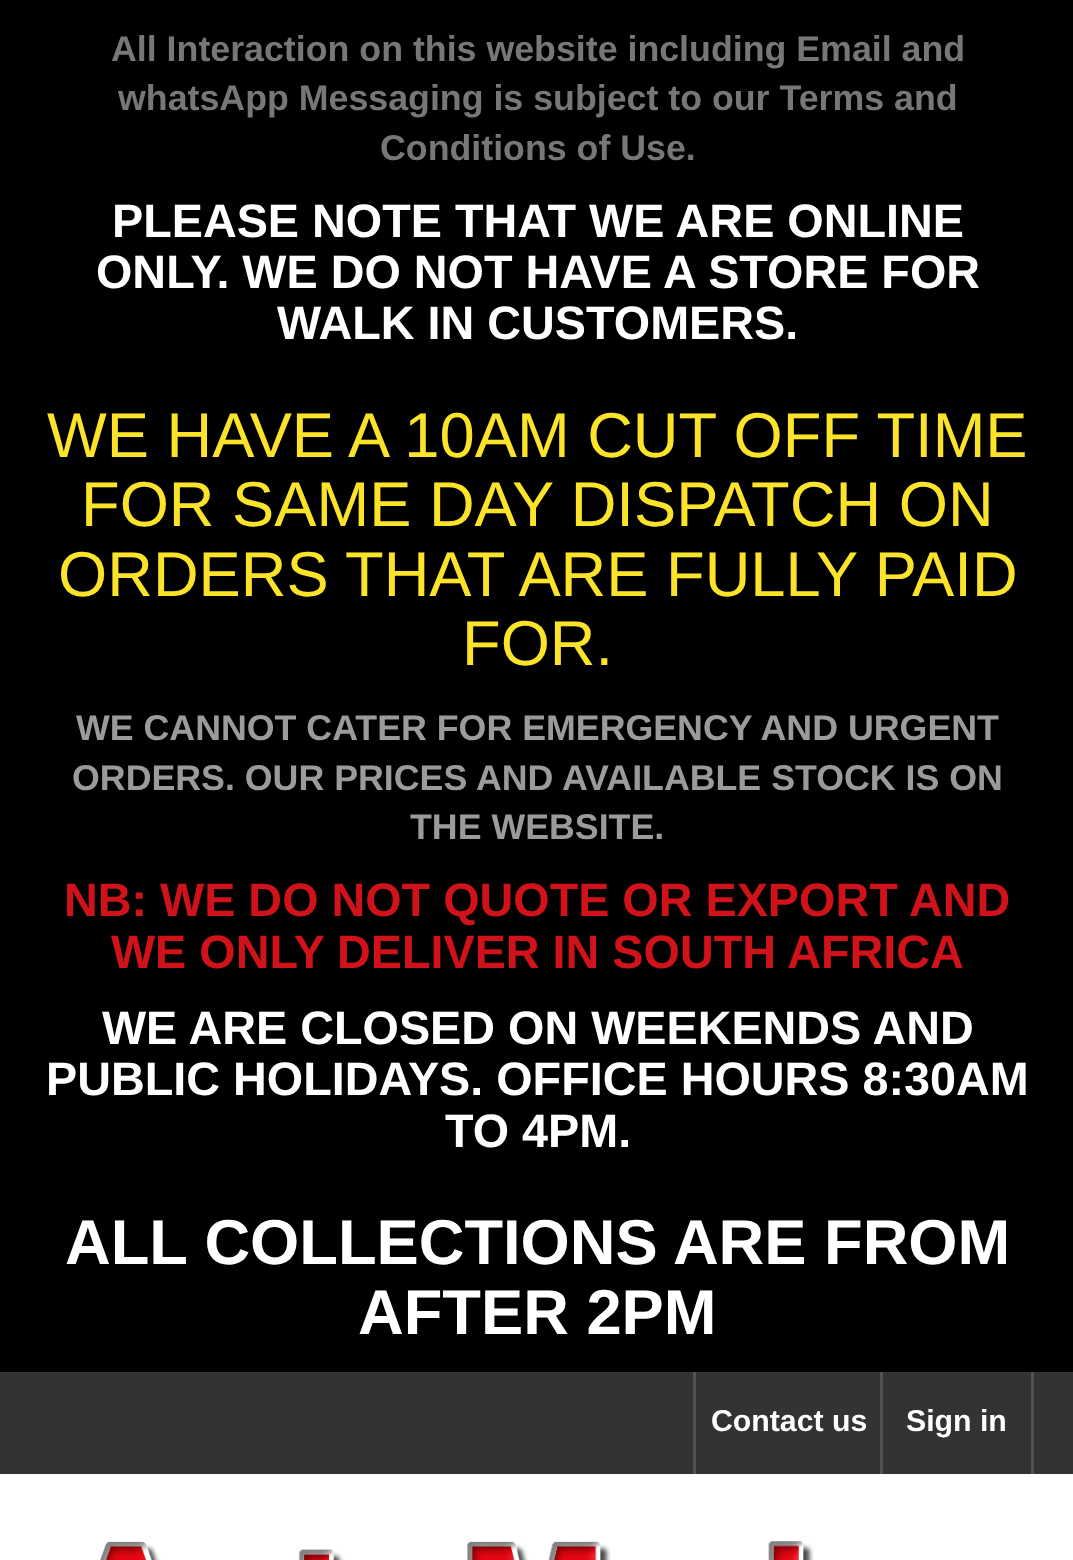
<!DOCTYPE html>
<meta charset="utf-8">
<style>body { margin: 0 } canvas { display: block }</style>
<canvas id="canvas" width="1073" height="1560"></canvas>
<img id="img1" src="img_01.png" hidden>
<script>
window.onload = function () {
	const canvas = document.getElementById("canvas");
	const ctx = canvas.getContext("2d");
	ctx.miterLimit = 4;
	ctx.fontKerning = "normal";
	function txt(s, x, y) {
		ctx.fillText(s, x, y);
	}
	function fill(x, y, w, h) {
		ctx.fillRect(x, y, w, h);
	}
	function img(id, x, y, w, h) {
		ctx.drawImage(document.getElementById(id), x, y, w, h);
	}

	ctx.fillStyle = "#FFFFFF";
	fill(0, 0, 1073, 1560);
	ctx.fillStyle = "#000000";
	fill(0, 0, 1073, 1372);
	ctx.fillStyle = "#333333";
	fill(0, 1372, 1073, 102);
	ctx.fillStyle = "#515151";
	fill(693, 1372, 3, 102);
	fill(1031, 1372, 3, 102);
	fill(880, 1372, 3, 102);
	img("img1", 100, 1541, 714, 19);
	ctx.font = "bold 35.75px Liberation Sans";
	ctx.fillStyle = "#777777";
	txt("All Interaction on this website including Email and", 111, 61);
	txt("whatsApp Messaging is subject to our Terms and", 118, 110);
	txt("Conditions of Use.", 380, 160);
	ctx.font = "bold 46.75px Liberation Sans";
	ctx.fillStyle = "#FFFFFF";
	txt("PLEASE NOTE THAT WE ARE ONLINE", 112, 237);
	txt("ONLY. WE DO NOT HAVE A STORE FOR", 96, 288);
	txt("WALK IN CUSTOMERS.", 277, 339);
	ctx.font = "63.25px Liberation Sans";
	ctx.fillStyle = "#FBE329";
	txt("WE HAVE A 10AM CUT OFF TIME", 47, 457);
	txt("FOR SAME DAY DISPATCH ON", 81, 526);
	txt("ORDERS THAT ARE FULLY PAID", 58, 596);
	txt("FOR.", 462, 665);
	ctx.font = "bold 35.75px Liberation Sans";
	ctx.fillStyle = "#9B9B9B";
	txt("WE CANNOT CATER FOR EMERGENCY AND URGENT", 76, 740);
	txt("ORDERS. OUR PRICES AND AVAILABLE STOCK IS ON", 72, 790);
	txt("THE WEBSITE.", 410, 839);
	ctx.font = "bold 46.75px Liberation Sans";
	ctx.fillStyle = "#D0121A";
	txt("NB: WE DO NOT QUOTE OR EXPORT AND", 64, 916);
	txt("WE ONLY DELIVER IN SOUTH AFRICA", 111, 968);
	ctx.fillStyle = "#FFFFFF";
	txt("WE ARE CLOSED ON WEEKENDS AND", 102, 1044);
	txt("PUBLIC HOLIDAYS. OFFICE HOURS 8:30AM", 46, 1095);
	txt("TO 4PM.", 445, 1147);
	ctx.font = "bold 63.25px Liberation Sans";
	txt("ALL COLLECTIONS ARE FROM", 65, 1264);
	txt("AFTER 2PM", 358, 1334);
	ctx.font = "bold 30.25px Liberation Sans";
	txt("Contact us", 711, 1431);
	txt("Sign in", 906, 1431);
};
</script>
